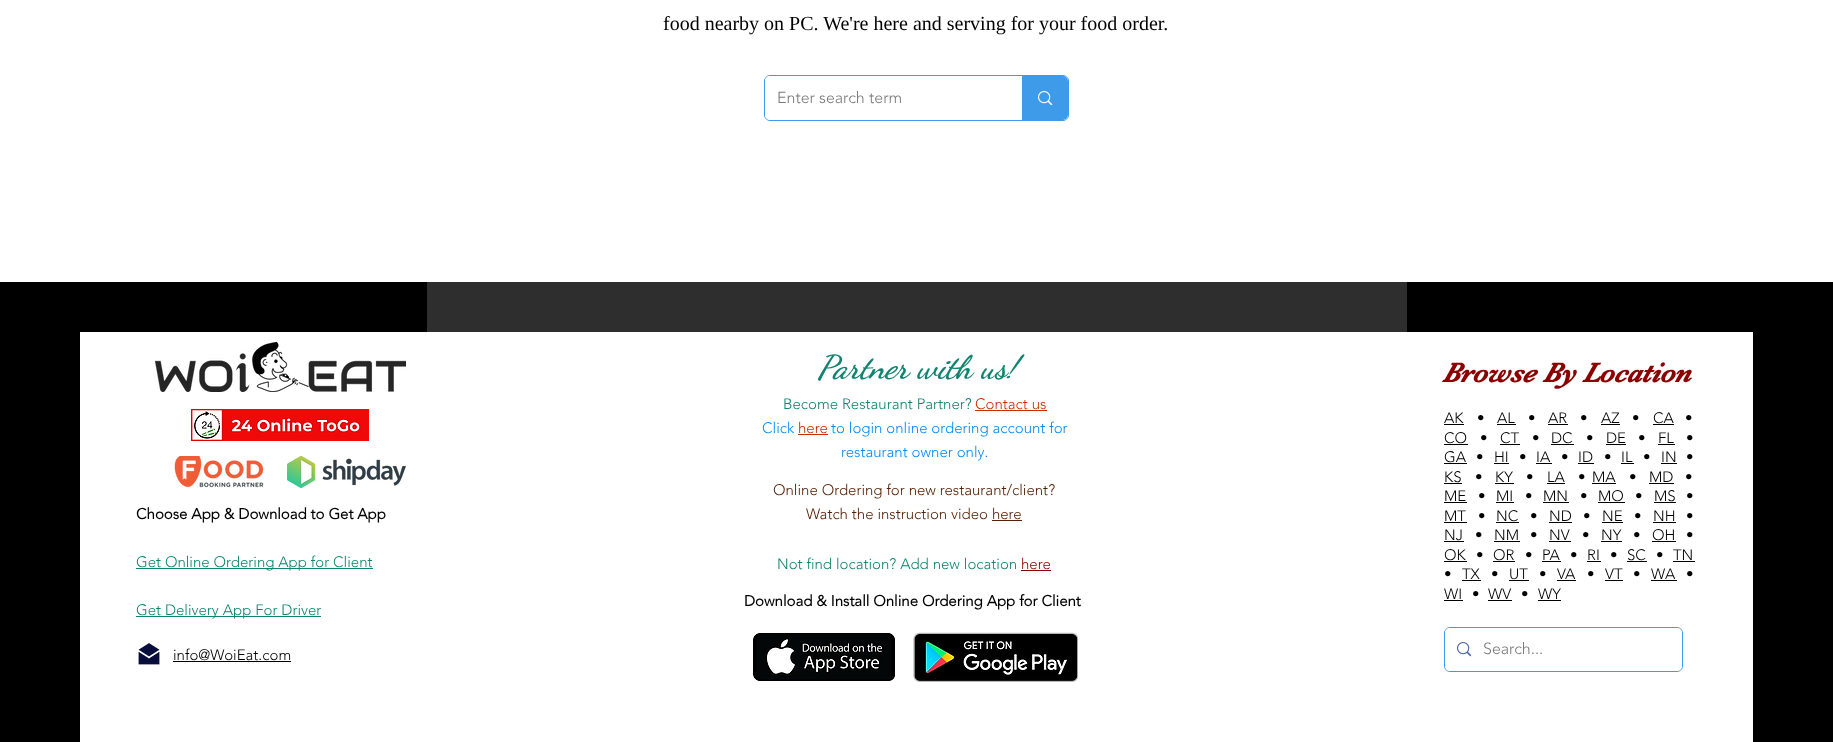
<!DOCTYPE html>
<meta charset="utf-8">
<style>body { margin: 0 } canvas { display: block }</style>
<canvas id="canvas" width="1833" height="742"></canvas>
<img id="img1" src="img_01.png" hidden>
<img id="img2" src="img_02.png" hidden>
<img id="img3" src="img_03.png" hidden>
<img id="img4" src="img_04.png" hidden>
<img id="img5" src="img_05.png" hidden>
<img id="img6" src="img_06.png" hidden>
<img id="img7" src="img_07.png" hidden>
<img id="img8" src="img_08.png" hidden>
<img id="img9" src="img_09.png" hidden>
<script>
window.onload = function () {
	const canvas = document.getElementById("canvas");
	const ctx = canvas.getContext("2d");
	ctx.miterLimit = 4;
	ctx.fontKerning = "normal";
	function txt(s, x, y) {
		ctx.fillText(s, x, y);
	}
	function fill(x, y, w, h) {
		ctx.fillRect(x, y, w, h);
	}
	function round(x, y, w, h, r) {
		ctx.beginPath();
		ctx.roundRect(x, y, w, h, r);
		ctx.fill();
	}
	function img(id, x, y, w, h) {
		ctx.drawImage(document.getElementById(id), x, y, w, h);
	}

	ctx.fillStyle = "#FFFFFF";
	fill(0, 0, 1833, 742);
	ctx.beginPath();
	ctx.roundRect(764.5, 75.5, 304, 45, 5.5);
	ctx.strokeStyle = "#3D9BE9";
	ctx.stroke();
	round(765, 76, 303, 44, 5);
	ctx.fillStyle = "#3D9BE9";
	ctx.beginPath();
	ctx.roundRect(1022, 76, 46, 44, [0, 5, 5, 0]);
	ctx.fill();
	img("img1", 1038, 91, 15, 14);
	ctx.fillStyle = "#000000";
	fill(0, 282, 1833, 460);
	ctx.fillStyle = "#2F2E2E";
	fill(427, 282, 980, 50);
	ctx.fillStyle = "#FFFFFF";
	fill(80, 332, 1673, 410);
	img("img2", 155, 342, 251, 50);
	img("img3", 191, 409, 178, 32);
	img("img4", 174, 456, 90, 32);
	img("img5", 287, 456, 119, 32);
	ctx.fillStyle = "#10846F";
	fill(136, 568, 237, 1);
	fill(136, 616, 185, 1);
	img("img6", 138, 643, 22, 22);
	ctx.fillStyle = "#000000";
	fill(173, 661, 118, 1);
	ctx.fillStyle = "#C72E00";
	fill(975, 410, 72, 1);
	fill(798, 434, 30, 1);
	ctx.fillStyle = "#552207";
	fill(992, 520, 30, 1);
	ctx.fillStyle = "#8B0000";
	fill(1021, 570, 30, 1);
	img("img7", 753, 633, 142, 48);
	img("img8", 913, 632, 165, 50);
	ctx.fillStyle = "#000000";
	fill(1444, 424, 20, 1);
	fill(1497, 424, 19, 1);
	fill(1548, 424, 20, 1);
	fill(1601, 424, 19, 1);
	fill(1653, 424, 21, 1);
	fill(1444, 444, 24, 1);
	fill(1500, 444, 20, 1);
	fill(1551, 444, 23, 1);
	fill(1606, 444, 20, 1);
	fill(1658, 444, 17, 1);
	fill(1444, 463, 23, 1);
	fill(1494, 463, 15, 1);
	fill(1536, 463, 16, 1);
	fill(1578, 463, 16, 1);
	fill(1621, 463, 13, 1);
	fill(1661, 463, 16, 1);
	fill(1444, 483, 18, 1);
	fill(1495, 483, 19, 1);
	fill(1547, 483, 18, 1);
	fill(1592, 483, 24, 1);
	fill(1649, 483, 25, 1);
	fill(1444, 502, 23, 1);
	fill(1496, 502, 18, 1);
	fill(1543, 502, 26, 1);
	fill(1598, 502, 27, 1);
	fill(1654, 502, 22, 1);
	fill(1444, 522, 23, 1);
	fill(1496, 522, 23, 1);
	fill(1549, 522, 23, 1);
	fill(1602, 522, 21, 1);
	fill(1653, 522, 23, 1);
	fill(1444, 541, 20, 1);
	fill(1494, 541, 26, 1);
	fill(1549, 541, 22, 1);
	fill(1601, 541, 21, 1);
	fill(1652, 541, 24, 1);
	fill(1444, 561, 23, 1);
	fill(1493, 561, 22, 1);
	fill(1542, 561, 19, 1);
	fill(1587, 561, 14, 1);
	fill(1627, 561, 20, 1);
	fill(1673, 561, 22, 1);
	fill(1462, 580, 19, 1);
	fill(1509, 580, 20, 1);
	fill(1557, 580, 19, 1);
	fill(1605, 580, 18, 1);
	fill(1651, 580, 26, 1);
	fill(1444, 600, 19, 1);
	fill(1488, 600, 24, 1);
	fill(1538, 600, 23, 1);
	ctx.beginPath();
	ctx.roundRect(1444.5, 627.5, 238, 44, 5.5);
	ctx.stroke();
	ctx.fillStyle = "#FFFFFF";
	round(1445, 628, 237, 43, 5);
	img("img9", 1457, 642, 14, 15);
	ctx.font = "20px Liberation Serif";
	ctx.fillStyle = "#000000";
	txt("food nearby on PC. We're here and serving for your food order.", 663, 30);
	ctx.font = "300 16px 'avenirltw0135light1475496'";
	ctx.fillStyle = "#787878";
	txt("Enter search term", 777, 103);
	ctx.font = "bold 15px 'avenirltw0135light1475496'";
	ctx.fillStyle = "#000000";
	txt("Choose App & Download to Get App", 136, 519);
	ctx.font = "300 15px 'avenirltw0135light1475496'";
	ctx.fillStyle = "#10846F";
	txt("Get Online Ordering App for Client", 136, 567);
	txt("Get Delivery App For Driver", 136, 615);
	ctx.fillStyle = "#000000";
	txt("info@WoiEat.com", 173, 660);
	ctx.font = "italic bold 33px Dancing Script";
	ctx.fillStyle = "#10846F";
	txt("Partner with us!", 817, 378);
	ctx.font = "300 15px 'avenirltw0135light1475496'";
	txt("Become Restaurant Partner?", 783, 409);
	ctx.fillStyle = "#C72E00";
	txt("Contact us", 975, 409);
	ctx.fillStyle = "#008AFC";
	txt("Click", 762, 433);
	ctx.fillStyle = "#C72E00";
	txt("here", 798, 433);
	ctx.fillStyle = "#008AFC";
	txt("to login online ordering account for", 831, 433);
	txt("restaurant owner only.", 841, 457);
	ctx.fillStyle = "#552207";
	txt("Online Ordering for new restaurant/client?", 773, 495);
	txt("Watch the instruction video here", 806, 519);
	ctx.fillStyle = "#10846F";
	txt("Not find location? Add new location", 777, 569);
	ctx.fillStyle = "#8B0000";
	txt("here", 1021, 569);
	ctx.font = "bold 15px 'avenirltw0135light1475496'";
	ctx.fillStyle = "#000000";
	txt("Download & Install Online Ordering App for Client", 744, 606);
	ctx.font = "italic bold 28px 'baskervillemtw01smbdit'";
	ctx.fillStyle = "#8B0000";
	txt("Browse By Location", 1442, 382);
	ctx.font = "300 15px 'avenirltw0135light1475496'";
	ctx.fillStyle = "#000000";
	txt("AK", 1444, 423);
	txt("•", 1477, 423);
	txt("AL", 1497, 423);
	txt("•", 1528, 423);
	txt("AR", 1548, 423);
	txt("•", 1580, 423);
	txt("AZ", 1601, 423);
	txt("•", 1632, 423);
	txt("CA", 1653, 423);
	txt("•", 1685, 423);
	txt("CO", 1444, 443);
	txt("•", 1480, 443);
	txt("CT", 1500, 443);
	txt("•", 1532, 443);
	txt("DC", 1551, 443);
	txt("•", 1586, 443);
	txt("DE", 1606, 443);
	txt("•", 1638, 443);
	txt("FL", 1658, 443);
	txt("•", 1686, 443);
	txt("GA", 1444, 462);
	txt("•", 1476, 462);
	txt("HI", 1494, 462);
	txt("•", 1519, 462);
	txt("IA", 1536, 462);
	txt("•", 1561, 462);
	txt("ID", 1578, 462);
	txt("•", 1604, 462);
	txt("IL", 1621, 462);
	txt("•", 1643, 462);
	txt("IN", 1661, 462);
	txt("•", 1686, 462);
	txt("KS", 1444, 482);
	txt("•", 1475, 482);
	txt("KY", 1495, 482);
	txt("•", 1526, 482);
	txt("LA", 1547, 482);
	txt("•", 1578, 482);
	txt("MA", 1592, 482);
	txt("•", 1629, 482);
	txt("MD", 1649, 482);
	txt("•", 1685, 482);
	txt("ME", 1444, 501);
	txt("•", 1478, 501);
	txt("MI", 1496, 501);
	txt("•", 1525, 501);
	txt("MN", 1543, 501);
	txt("•", 1580, 501);
	txt("MO", 1598, 501);
	txt("•", 1635, 501);
	txt("MS", 1654, 501);
	txt("•", 1686, 501);
	txt("MT", 1444, 521);
	txt("•", 1478, 521);
	txt("NC", 1496, 521);
	txt("•", 1530, 521);
	txt("ND", 1549, 521);
	txt("•", 1583, 521);
	txt("NE", 1602, 521);
	txt("•", 1634, 521);
	txt("NH", 1653, 521);
	txt("•", 1686, 521);
	txt("NJ", 1444, 540);
	txt("•", 1475, 540);
	txt("NM", 1494, 540);
	txt("•", 1530, 540);
	txt("NV", 1549, 540);
	txt("•", 1582, 540);
	txt("NY", 1601, 540);
	txt("•", 1633, 540);
	txt("OH", 1652, 540);
	txt("•", 1686, 540);
	txt("OK", 1444, 560);
	txt("•", 1476, 560);
	txt("OR", 1493, 560);
	txt("•", 1525, 560);
	txt("PA", 1542, 560);
	txt("•", 1570, 560);
	txt("RI", 1587, 560);
	txt("•", 1610, 560);
	txt("SC", 1627, 560);
	txt("•", 1656, 560);
	txt("TN", 1673, 560);
	txt("•", 1444, 579);
	txt("TX", 1462, 579);
	txt("•", 1491, 579);
	txt("UT", 1509, 579);
	txt("•", 1539, 579);
	txt("VA", 1557, 579);
	txt("•", 1587, 579);
	txt("VT", 1605, 579);
	txt("•", 1633, 579);
	txt("WA", 1651, 579);
	txt("•", 1686, 579);
	txt("WI", 1444, 599);
	txt("•", 1472, 599);
	txt("WV", 1488, 599);
	txt("•", 1521, 599);
	txt("WY", 1538, 599);
	ctx.font = "300 16px 'avenirltw0135light1475496'";
	ctx.fillStyle = "#787878";
	txt("Search...", 1483, 654);
};
</script>
